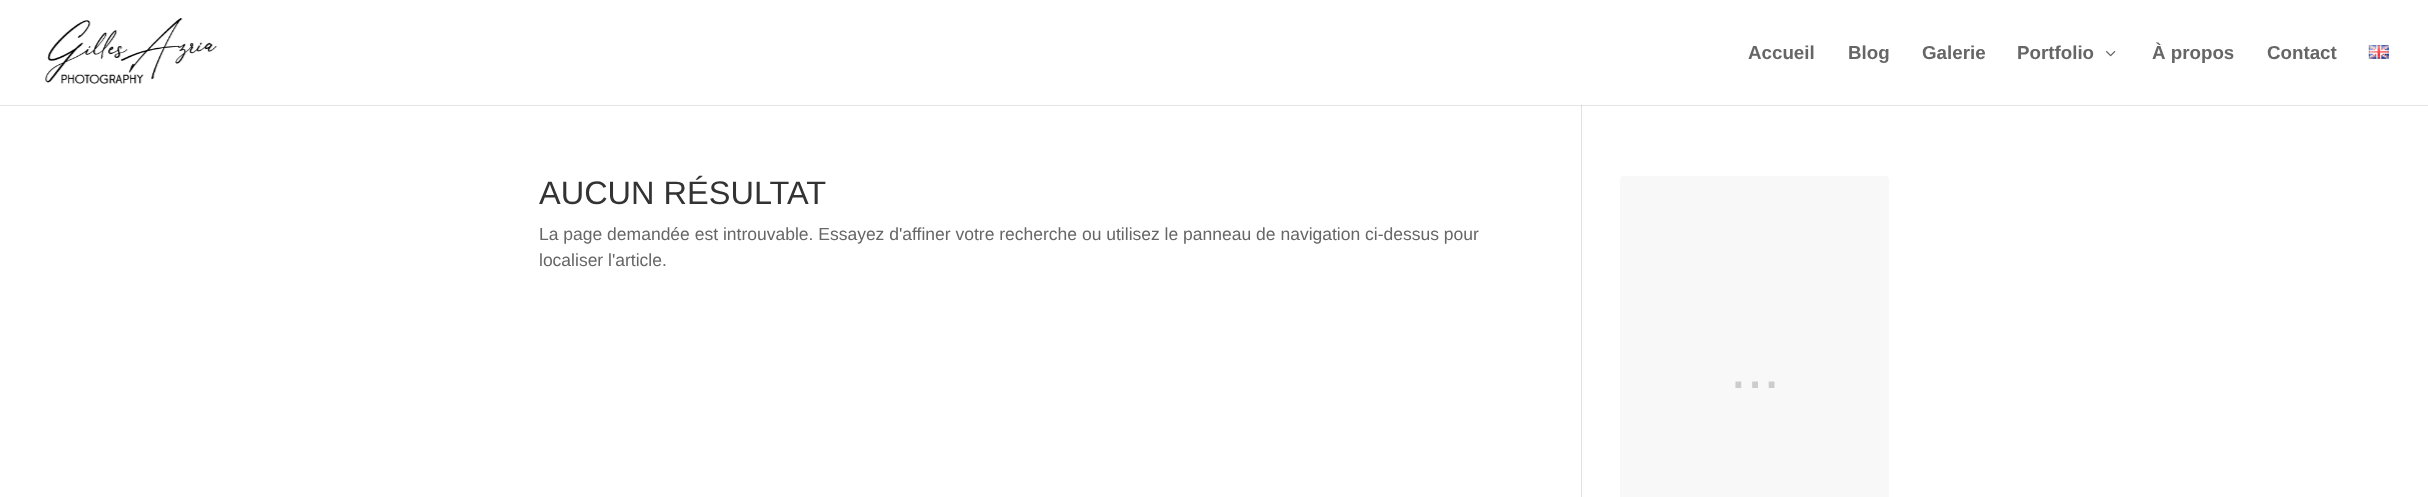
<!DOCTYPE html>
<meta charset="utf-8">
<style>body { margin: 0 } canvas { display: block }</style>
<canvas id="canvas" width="2428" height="497"></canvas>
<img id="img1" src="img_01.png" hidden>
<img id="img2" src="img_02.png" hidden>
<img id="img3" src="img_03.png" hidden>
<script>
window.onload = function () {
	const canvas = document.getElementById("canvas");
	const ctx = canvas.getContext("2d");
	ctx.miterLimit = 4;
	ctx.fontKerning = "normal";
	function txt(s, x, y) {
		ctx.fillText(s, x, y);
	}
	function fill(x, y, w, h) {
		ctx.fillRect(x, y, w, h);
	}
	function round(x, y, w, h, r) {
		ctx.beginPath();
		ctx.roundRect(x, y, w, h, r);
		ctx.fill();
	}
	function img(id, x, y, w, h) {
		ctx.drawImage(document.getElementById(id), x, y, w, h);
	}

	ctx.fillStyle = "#FFFFFF";
	fill(0, 0, 2428, 497);
	ctx.fillStyle = "#E2E2E2";
	fill(1581, 104, 1, 393);
	ctx.fillStyle = "rgba(0, 0, 0, 0.1)";
	ctx.beginPath();
	ctx.moveTo(0, 105);
	ctx.lineTo(0, 106);
	ctx.lineTo(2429, 106);
	ctx.lineTo(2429, 1);
	ctx.lineTo(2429, 105);
	ctx.closePath();
	ctx.fill();
	ctx.fillStyle = "#FFFFFF";
	fill(1581, 104, 1, 1);
	img("img1", 45, 18, 173, 66);
	img("img2", 2106, 51, 10, 6);
	img("img3", 2368, 45, 21, 14);
	ctx.fillStyle = "#F8F8F8";
	round(1620, 176, 269, 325, 4);
	ctx.font = "bold 18.75px Liberation Sans";
	ctx.fillStyle = "#666666";
	txt("Accueil", 1748, 59);
	txt("Blog", 1848, 59);
	txt("Galerie", 1922, 59);
	txt("Portfolio", 2017, 59);
	txt("À propos", 2152, 59);
	txt("Contact", 2267, 59);
	ctx.font = "32.5px Liberation Sans";
	ctx.fillStyle = "#333333";
	txt("AUCUN RÉSULTAT", 539, 204);
	ctx.font = "17.5px Liberation Sans";
	ctx.fillStyle = "#666666";
	txt("La page demandée est introuvable. Essayez d'affiner votre recherche ou utilisez le panneau de navigation ci-dessus pour", 539, 240);
	txt("localiser l'article.", 539, 266);
	ctx.font = "60px Liberation Sans";
	ctx.fillStyle = "#CCCCCC";
	txt("...", 1730, 388);
};
</script>
